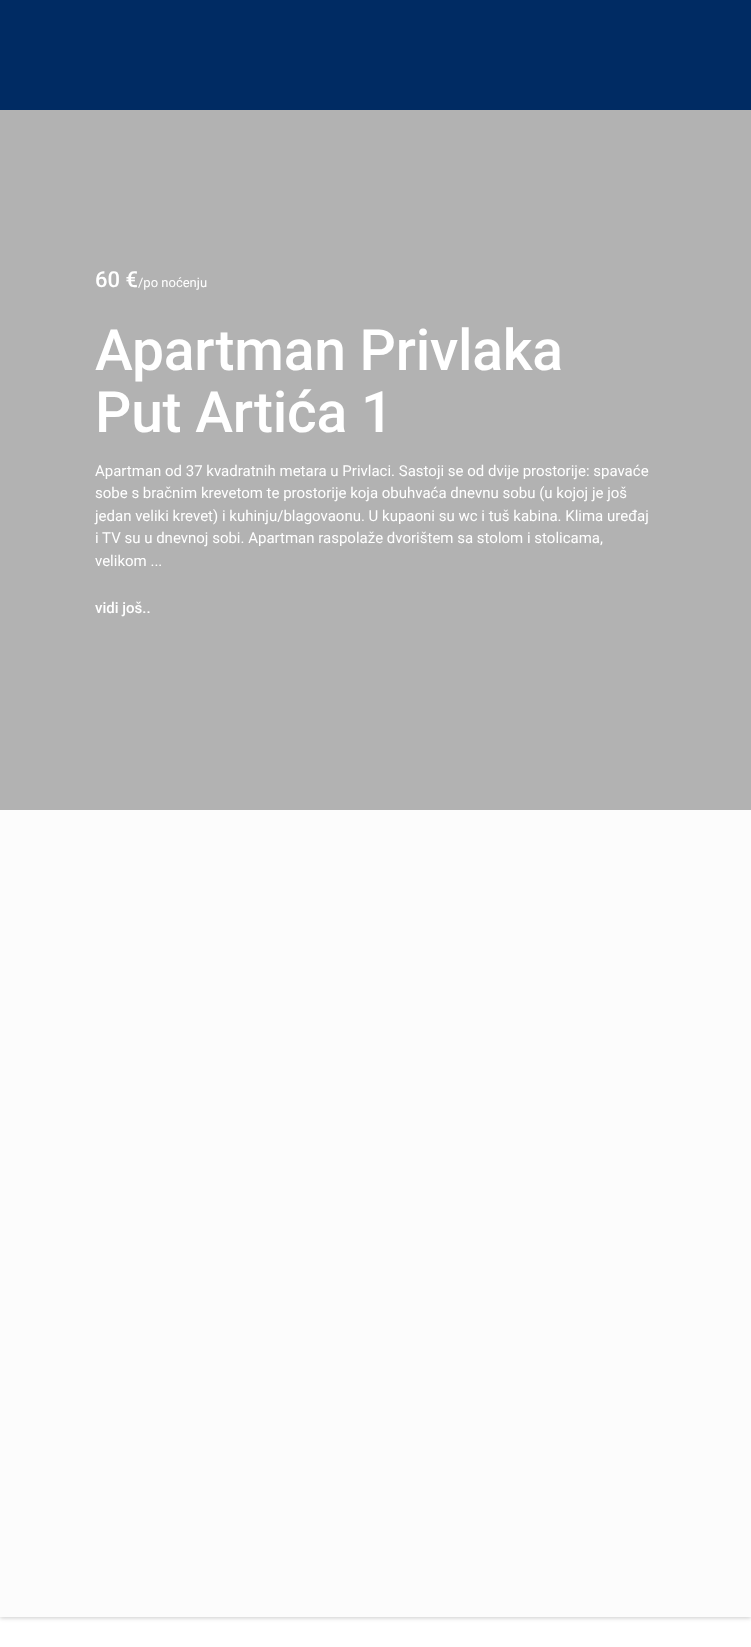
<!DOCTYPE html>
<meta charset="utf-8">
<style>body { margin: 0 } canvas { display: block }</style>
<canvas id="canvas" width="751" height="1647"></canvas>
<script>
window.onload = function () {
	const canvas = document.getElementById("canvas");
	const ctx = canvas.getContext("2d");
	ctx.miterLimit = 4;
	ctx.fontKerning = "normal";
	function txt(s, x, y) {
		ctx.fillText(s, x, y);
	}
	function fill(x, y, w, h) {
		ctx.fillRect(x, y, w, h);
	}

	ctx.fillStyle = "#FFFFFF";
	fill(0, 0, 751, 1647);
	ctx.fillStyle = "rgba(0, 0, 0, 0.2)";
	ctx.filter = "blur(2px)";
	ctx.beginPath();
	ctx.rect(0, 1, 751, 1617);
	ctx.fill();
	ctx.filter = "none";
	ctx.fillStyle = "#FCFCFC";
	fill(0, 810, 751, 807);
	ctx.fillStyle = "#002B63";
	fill(0, 0, 751, 110);
	ctx.fillStyle = "#B2B2B2";
	fill(0, 110, 751, 700);
	ctx.font = "500 22px Roboto";
	ctx.fillStyle = "#FFFFFF";
	txt("60 €", 95, 287);
	ctx.font = "13px Roboto";
	txt("/po noćenju", 138, 287);
	ctx.letterSpacing = "-0.25px";
	ctx.font = "500 57px Roboto";
	txt("Apartman Privlaka", 95, 370);
	txt("Put Artića 1", 95, 432);
	ctx.letterSpacing = "0px";
	ctx.font = "15px Roboto";
	txt("Apartman od 37 kvadratnih metara u Privlaci. Sastoji se od dvije prostorije: spavaće", 95, 476);
	txt("sobe s bračnim krevetom te prostorije koja obuhvaća dnevnu sobu (u kojoj je još", 95, 498);
	txt("jedan veliki krevet) i kuhinju/blagovaonu. U kupaoni su wc i tuš kabina. Klima uređaj", 95, 521);
	txt("i TV su u dnevnoj sobi. Apartman raspolaže dvorištem sa stolom i stolicama,", 95, 543);
	txt("velikom ...", 95, 566);
	ctx.font = "500 15px Roboto";
	txt("vidi još..", 95, 613);
};
</script>
